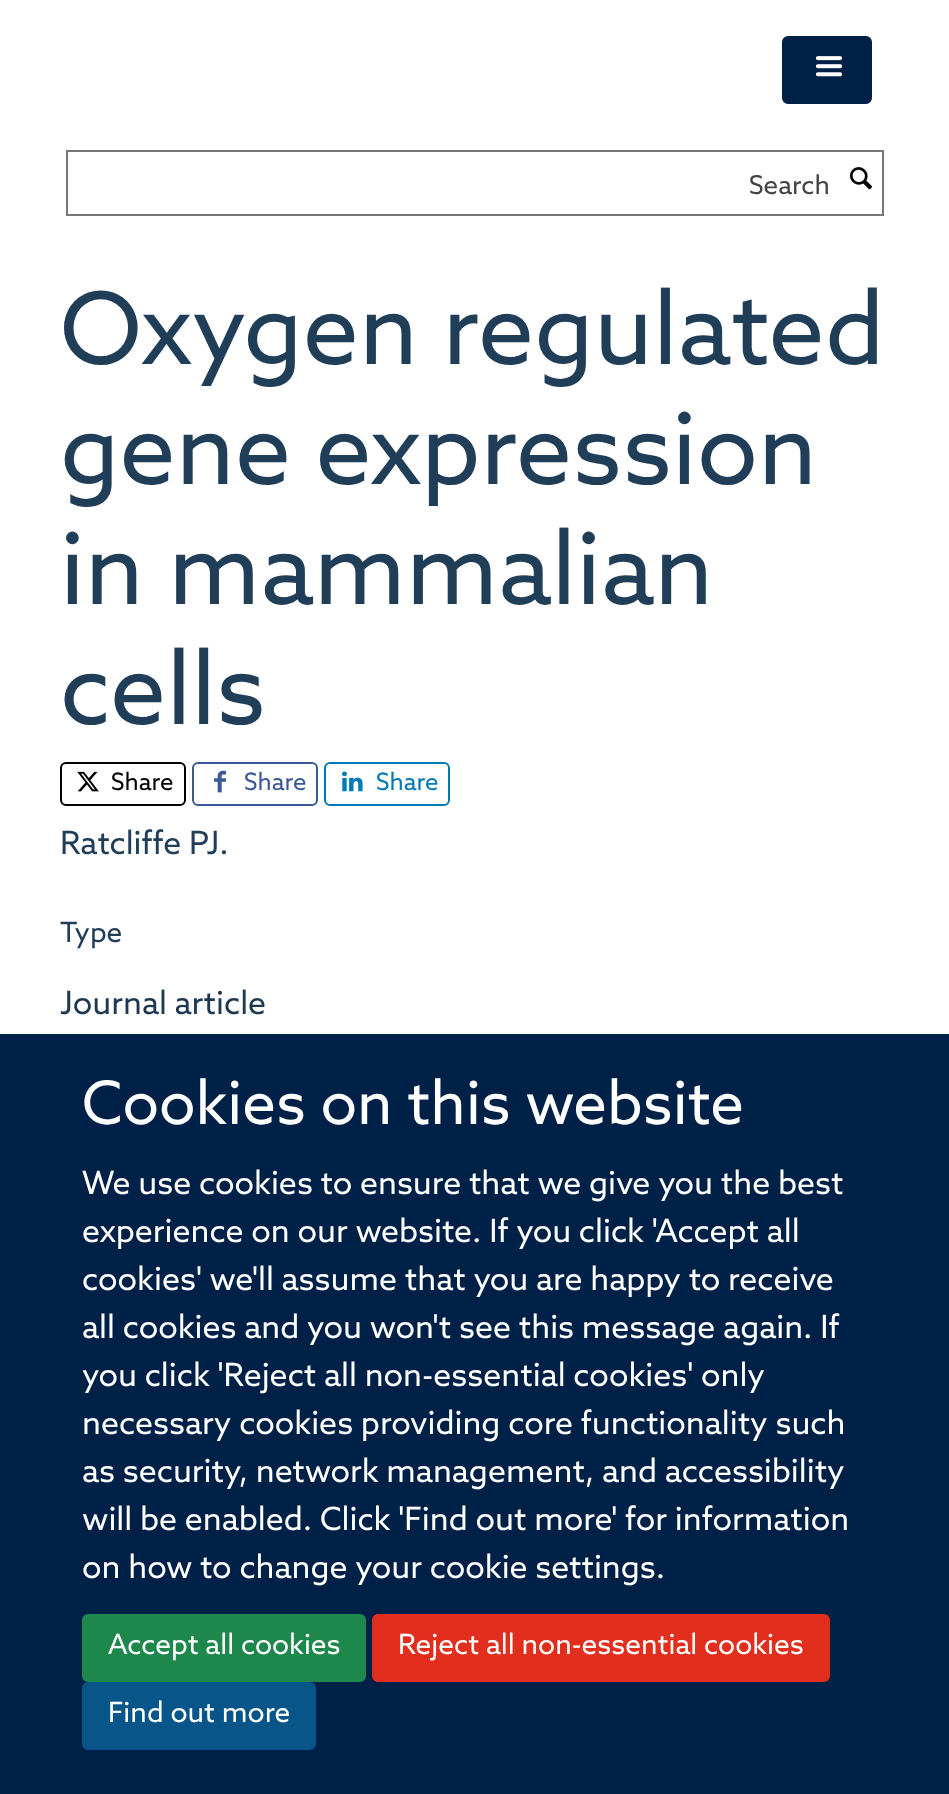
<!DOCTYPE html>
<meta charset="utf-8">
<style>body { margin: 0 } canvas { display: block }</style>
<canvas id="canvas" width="949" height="1794"></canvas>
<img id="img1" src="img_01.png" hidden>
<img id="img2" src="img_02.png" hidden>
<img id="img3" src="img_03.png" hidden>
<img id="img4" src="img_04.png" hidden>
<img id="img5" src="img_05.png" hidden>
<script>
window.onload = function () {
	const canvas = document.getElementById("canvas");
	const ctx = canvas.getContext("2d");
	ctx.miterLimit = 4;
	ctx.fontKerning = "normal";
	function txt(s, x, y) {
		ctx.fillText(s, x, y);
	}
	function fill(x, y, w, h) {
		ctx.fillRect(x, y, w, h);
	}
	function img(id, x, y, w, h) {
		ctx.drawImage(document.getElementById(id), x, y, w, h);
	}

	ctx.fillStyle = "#FFFFFF";
	fill(0, 0, 949, 1794);
	ctx.fillStyle = "#002147";
	ctx.beginPath();
	ctx.roundRect(783, 37, 88, 66, 5);
	ctx.fill();
	ctx.strokeStyle = "#002147";
	ctx.lineWidth = 2;
	ctx.stroke();
	img("img1", 815, 56, 28, 21);
	ctx.strokeStyle = "#777777";
	ctx.strokeRect(67, 151, 816, 64);
	img("img2", 850, 167, 23, 23);
	ctx.beginPath();
	ctx.roundRect(61, 763, 124, 42, 5);
	ctx.strokeStyle = "#000000";
	ctx.stroke();
	img("img3", 77, 771, 22, 21);
	ctx.beginPath();
	ctx.roundRect(193, 763, 124, 42, 5);
	ctx.strokeStyle = "#3B5998";
	ctx.stroke();
	img("img4", 214, 770, 12, 23);
	ctx.beginPath();
	ctx.roundRect(325, 763, 124, 42, 5);
	ctx.strokeStyle = "#007BB6";
	ctx.stroke();
	img("img5", 342, 771, 21, 21);
	fill(0, 1034, 949, 760);
	ctx.fillStyle = "#1E874B";
	ctx.beginPath();
	ctx.roundRect(83, 1615, 282, 66, 5);
	ctx.fill();
	ctx.strokeStyle = "#1E874B";
	ctx.stroke();
	ctx.fillStyle = "#E22E1C";
	ctx.beginPath();
	ctx.roundRect(373, 1615, 456, 66, 5);
	ctx.fill();
	ctx.strokeStyle = "#E22E1C";
	ctx.stroke();
	ctx.fillStyle = "#085589";
	ctx.beginPath();
	ctx.roundRect(83, 1683, 232, 66, 5);
	ctx.fill();
	ctx.strokeStyle = "#085589";
	ctx.stroke();
	ctx.font = "26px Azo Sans";
	ctx.fillStyle = "#444444";
	txt("Search", 749, 194);
	ctx.font = "100px Azo Sans";
	ctx.fillStyle = "#203E58";
	txt("Oxygen regulated", 60, 364);
	txt("gene expression", 60, 484);
	txt("in mammalian", 60, 604);
	txt("cells", 60, 724);
	ctx.font = "24px Azo Sans";
	ctx.fillStyle = "#000000";
	txt("Share", 111, 790);
	ctx.fillStyle = "#3B5998";
	txt("Share", 244, 790);
	ctx.fillStyle = "#007BB6";
	txt("Share", 376, 790);
	ctx.font = "32px Azo Sans";
	ctx.fillStyle = "#203E58";
	txt("Ratcliffe PJ.", 60, 854);
	ctx.font = "28px Azo Sans";
	txt("Type", 60, 942);
	ctx.font = "32px Azo Sans";
	ctx.fillStyle = "#1D3850";
	txt("Journal article", 60, 1014);
	ctx.font = "60px Azo Sans";
	ctx.fillStyle = "#FFFFFF";
	txt("Cookies on this website", 82, 1124);
	ctx.font = "32px Azo Sans";
	txt("We use cookies to ensure that we give you the best", 82, 1194);
	txt("experience on our website. If you click 'Accept all", 82, 1242);
	txt("cookies' we'll assume that you are happy to receive", 82, 1290);
	txt("all cookies and you won't see this message again. If", 82, 1338);
	txt("you click 'Reject all non-essential cookies' only", 82, 1386);
	txt("necessary cookies providing core functionality such", 82, 1434);
	txt("as security, network management, and accessibility", 82, 1482);
	txt("will be enabled. Click 'Find out more' for information", 82, 1530);
	txt("on how to change your cookie settings.", 82, 1578);
	ctx.font = "28px Azo Sans";
	txt("Accept all cookies", 108, 1654);
	txt("Reject all non-essential cookies", 398, 1654);
	txt("Find out more", 108, 1722);
};
</script>
